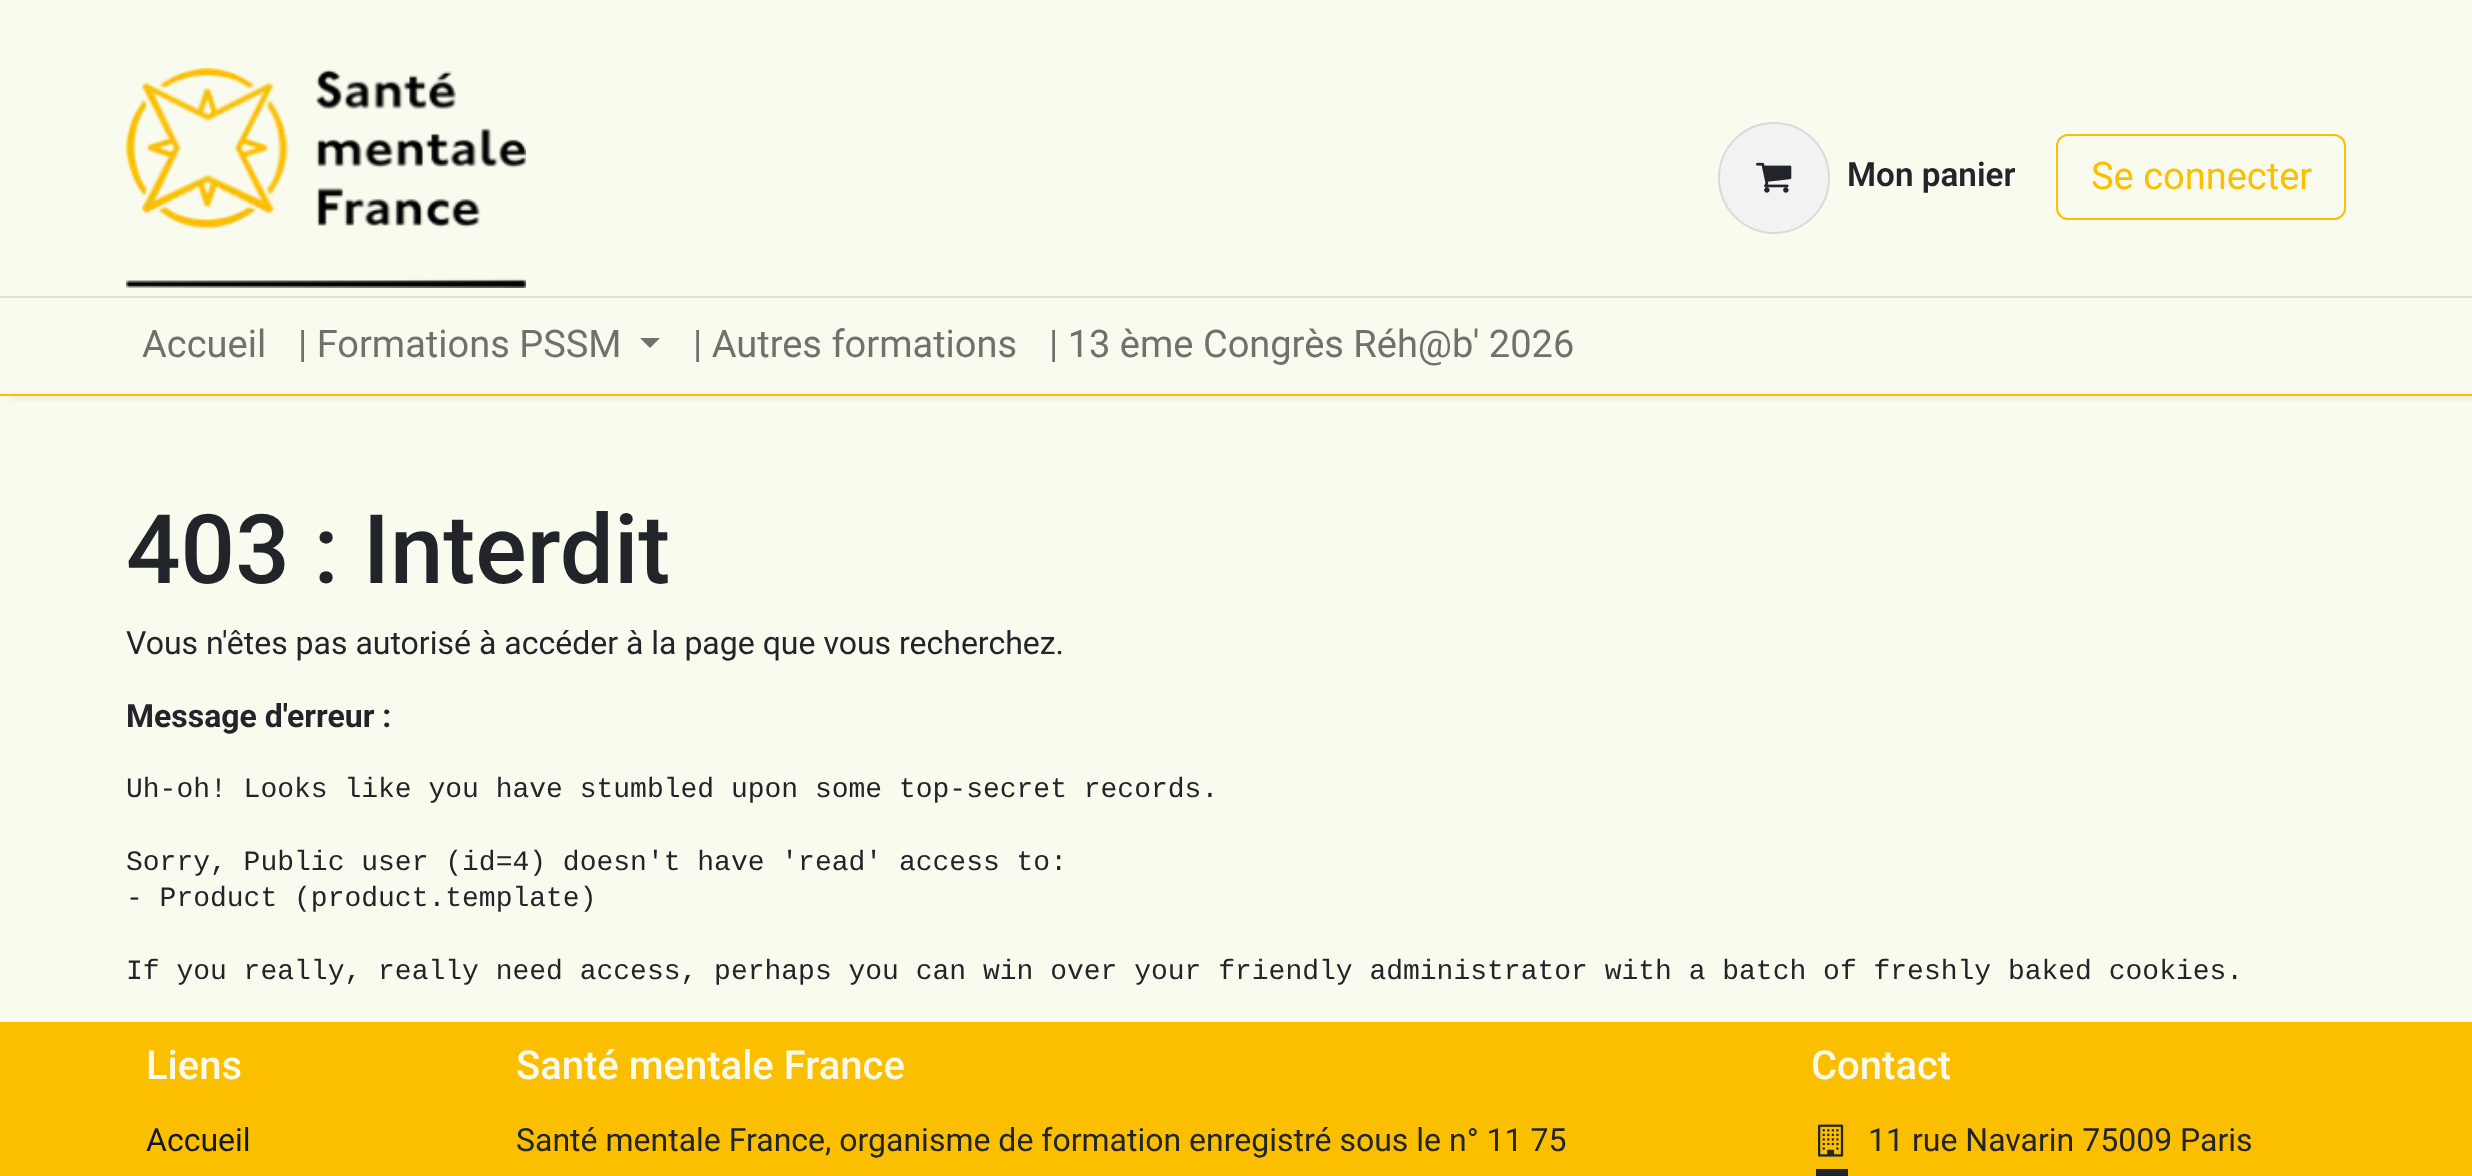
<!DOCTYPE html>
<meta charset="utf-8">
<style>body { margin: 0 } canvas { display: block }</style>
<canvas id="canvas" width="2472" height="1176"></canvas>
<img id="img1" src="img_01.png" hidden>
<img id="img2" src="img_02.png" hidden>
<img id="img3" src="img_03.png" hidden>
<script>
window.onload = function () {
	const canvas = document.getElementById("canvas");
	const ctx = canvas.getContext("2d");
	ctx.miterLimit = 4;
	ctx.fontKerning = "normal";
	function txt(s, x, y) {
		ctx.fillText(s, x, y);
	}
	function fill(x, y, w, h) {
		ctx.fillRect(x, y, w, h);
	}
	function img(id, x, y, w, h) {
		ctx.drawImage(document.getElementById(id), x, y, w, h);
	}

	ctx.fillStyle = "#FAFBEF";
	fill(0, 0, 2472, 1176);
	ctx.save();
	ctx.beginPath();
	ctx.rect(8, 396, 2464, 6);
	ctx.clip();
	ctx.fillStyle = "rgba(80, 78, 78, 0.1)";
	ctx.filter = "blur(5px)";
	ctx.beginPath();
	ctx.rect(10, 2, 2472, 396);
	ctx.fill();
	ctx.filter = "none";
	ctx.restore();
	ctx.fillStyle = "#FCBF00";
	fill(0, 394, 2472, 2);
	img("img1", 126, 68, 400, 220);
	ctx.fillStyle = "#F3F2F2";
	ctx.beginPath();
	ctx.arc(1774, 178, 56, 0, Math.PI * 2);
	ctx.fill();
	ctx.beginPath();
	ctx.arc(1774, 178, 55, 0, Math.PI * 2);
	ctx.strokeStyle = "rgba(0, 0, 0, 0.1)";
	ctx.lineWidth = 2;
	ctx.stroke();
	img("img2", 1756, 162, 36, 31);
	ctx.beginPath();
	ctx.roundRect(2057, 135, 288, 84, 11);
	ctx.strokeStyle = "#FCBF00";
	ctx.stroke();
	ctx.fillStyle = "#E1E2D7";
	fill(0, 296, 2472, 2);
	ctx.fillStyle = "#71716C";
	ctx.beginPath();
	ctx.moveTo(640, 338);
	ctx.lineTo(660, 338);
	ctx.lineTo(650, 348);
	ctx.closePath();
	ctx.fill();
	ctx.fillStyle = "#FCBF00";
	fill(0, 1022, 2472, 154);
	img("img3", 1818, 1124, 26, 33);
	ctx.fillStyle = "#212529";
	fill(1816, 1169, 32, 7);
	ctx.font = "600 33.25px Roboto";
	txt("Mon panier", 1847, 186);
	ctx.font = "38px Roboto";
	ctx.fillStyle = "#FCBF00";
	txt("Se connecter", 2091, 189);
	ctx.fillStyle = "#71716C";
	txt("Accueil", 142, 357);
	txt("| Formations PSSM", 298, 357);
	txt("| Autres formations", 693, 357);
	txt("| 13 ème Congrès Réh@b' 2026", 1049, 357);
	ctx.font = "500 96px Roboto";
	ctx.fillStyle = "#212529";
	txt("403 : Interdit", 126, 583);
	ctx.font = "32px Roboto";
	txt("Vous n'êtes pas autorisé à accéder à la page que vous recherchez.", 126, 654);
	ctx.font = "bold 32px Roboto";
	txt("Message d'erreur :", 126, 727);
	ctx.font = "28px Liberation Mono";
	txt("Uh-oh! Looks like you have stumbled upon some top-secret records.", 126, 797);
	txt("Sorry, Public user (id=4) doesn't have 'read' access to:", 126, 870);
	txt("- Product (product.template)", 126, 906);
	txt("If you really, really need access, perhaps you can win over your friendly administrator with a batch of freshly baked cookies.", 126, 979);
	ctx.font = "500 40px Roboto";
	ctx.fillStyle = "#FAFBEF";
	txt("Liens", 146, 1079);
	ctx.font = "32px Roboto";
	ctx.fillStyle = "#111827";
	txt("Accueil", 146, 1151);
	ctx.font = "500 40px Roboto";
	ctx.fillStyle = "#FAFBEF";
	txt("Santé mentale France", 516, 1079);
	ctx.font = "32px Roboto";
	ctx.fillStyle = "#212529";
	txt("Santé mentale France, organisme de formation enregistré sous le n° 11 75", 516, 1151);
	ctx.font = "500 40px Roboto";
	ctx.fillStyle = "#FAFBEF";
	txt("Contact", 1811, 1079);
	ctx.font = "32px Roboto";
	ctx.fillStyle = "#212529";
	txt("11 rue Navarin 75009 Paris", 1868, 1151);
};
</script>
